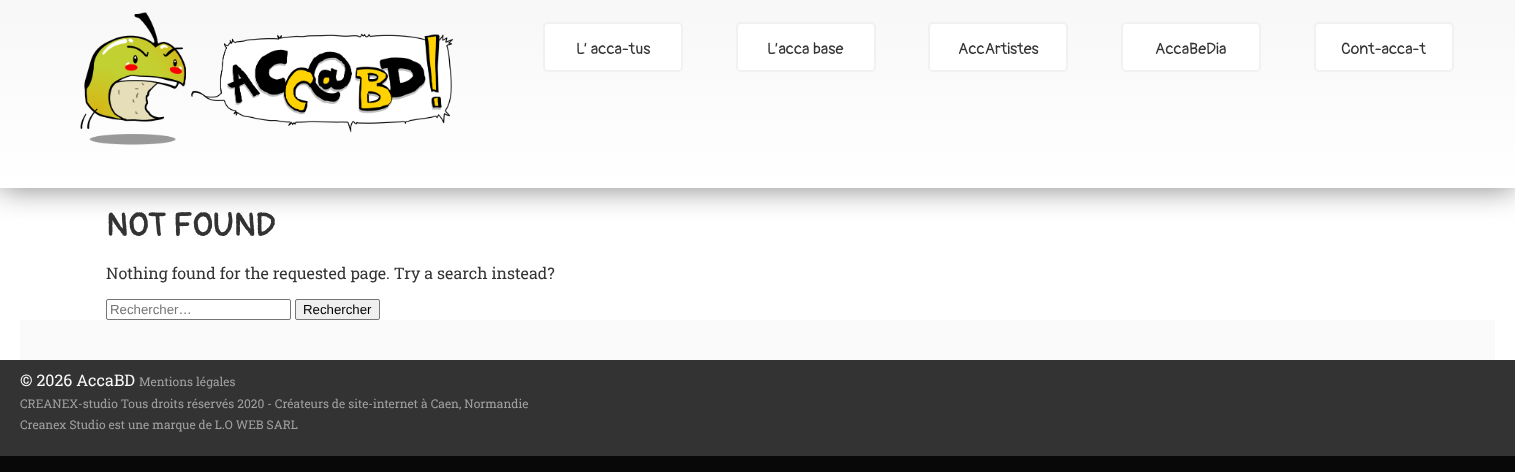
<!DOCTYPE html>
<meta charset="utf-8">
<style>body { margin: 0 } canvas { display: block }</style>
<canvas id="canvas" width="1515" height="472"></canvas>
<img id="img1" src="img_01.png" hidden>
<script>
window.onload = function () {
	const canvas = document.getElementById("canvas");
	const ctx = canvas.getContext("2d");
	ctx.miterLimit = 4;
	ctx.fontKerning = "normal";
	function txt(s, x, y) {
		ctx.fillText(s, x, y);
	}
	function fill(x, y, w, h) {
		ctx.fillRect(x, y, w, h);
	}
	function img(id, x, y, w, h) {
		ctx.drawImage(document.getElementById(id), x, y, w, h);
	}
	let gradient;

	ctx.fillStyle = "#080808";
	fill(0, 0, 1515, 472);
	ctx.fillStyle = "#FFFFFF";
	fill(0, 188, 1515, 172);
	ctx.fillStyle = "#808080";
	ctx.filter = "blur(15px)";
	ctx.beginPath();
	ctx.rect(0, 0, 1515, 188);
	ctx.fill();
	ctx.filter = "none";
	gradient = ctx.createLinearGradient(758, 188, 758, 0);
	gradient.addColorStop(0, "#FFFFFF");
	gradient.addColorStop(0.9, "#F8F8F8");
	ctx.fillStyle = gradient;
	fill(0, 0, 1515, 188);
	img("img1", 80, 12, 374, 133);
	ctx.fillStyle = "#FFFFFF";
	ctx.beginPath();
	ctx.roundRect(544, 23, 138, 48, 4);
	ctx.fill();
	ctx.strokeStyle = "#F1F1F1";
	ctx.lineWidth = 2;
	ctx.stroke();
	ctx.beginPath();
	ctx.roundRect(737, 23, 138, 48, 4);
	ctx.fill();
	ctx.stroke();
	ctx.beginPath();
	ctx.roundRect(929, 23, 138, 48, 4);
	ctx.fill();
	ctx.stroke();
	ctx.beginPath();
	ctx.roundRect(1122, 23, 138, 48, 4);
	ctx.fill();
	ctx.stroke();
	ctx.beginPath();
	ctx.roundRect(1315, 23, 138, 48, 4);
	ctx.fill();
	ctx.stroke();
	ctx.beginPath();
	ctx.roundRect(106.5, 299.5, 184, 20, 1.5);
	ctx.strokeStyle = "#767676";
	ctx.lineWidth = 1;
	ctx.stroke();
	ctx.fillStyle = "#EFEFEF";
	ctx.beginPath();
	ctx.roundRect(295.5, 299.5, 84, 20, 1.5);
	ctx.fill();
	ctx.stroke();
	ctx.fillStyle = "#FAFAFA";
	fill(20, 320, 1475, 40);
	ctx.fillStyle = "#333333";
	fill(0, 360, 1515, 96);
	ctx.font = "16px Pangolin";
	txt("L’ acca-tus", 576, 54);
	txt("L’acca base", 767, 54);
	txt("AccArtistes", 958, 54);
	txt("AccaBeDia", 1155, 54);
	txt("Cont-acca-t", 1341, 54);
	ctx.font = "bold 32px Pangolin";
	txt("NOT FOUND", 106, 236);
	ctx.font = "16px Roboto Slab";
	txt("Nothing found for the requested page. Try a search instead?", 106, 279);
	ctx.font = "13.25px Liberation Sans";
	ctx.fillStyle = "#757575";
	txt("Rechercher…", 110, 314);
	ctx.fillStyle = "#000000";
	txt("Rechercher", 303, 314);
	ctx.font = "16px Roboto Slab";
	ctx.fillStyle = "#FAFAFA";
	txt("© 2026 AccaBD", 20, 386);
	ctx.font = "12px Roboto Slab";
	ctx.fillStyle = "#A0A0A0";
	txt("Mentions légales", 139, 386);
	txt("CREANEX-studio Tous droits réservés 2020 - Créateurs de site-internet à Caen, Normandie", 20, 408);
	txt("Creanex Studio est une marque de L.O WEB SARL", 20, 429);
};
</script>
